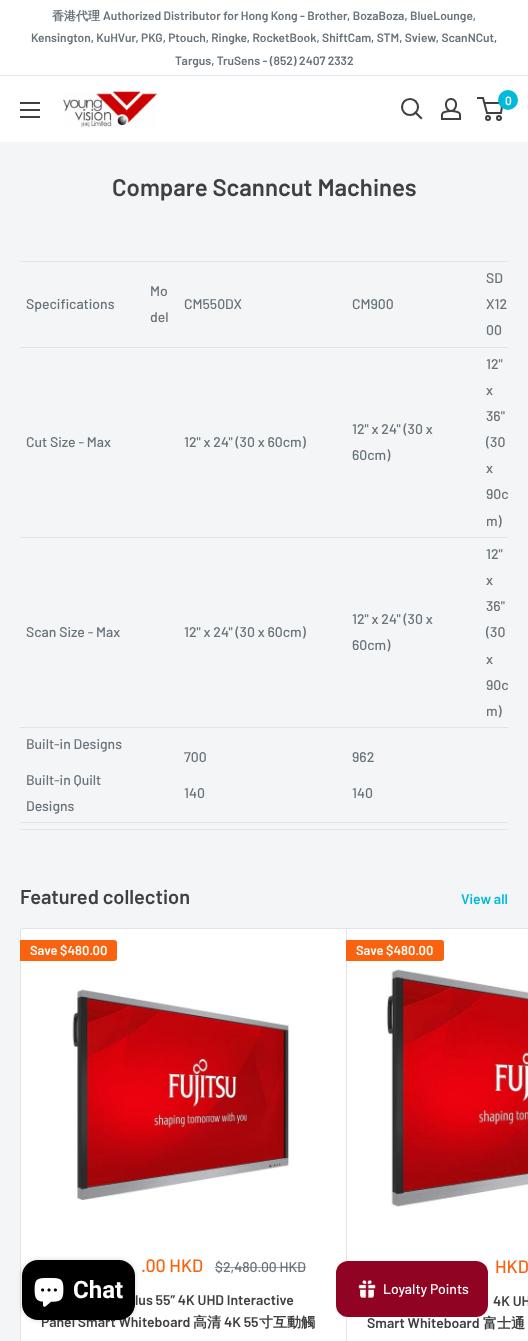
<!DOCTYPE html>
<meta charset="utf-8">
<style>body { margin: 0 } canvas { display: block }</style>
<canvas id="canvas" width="528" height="1341"></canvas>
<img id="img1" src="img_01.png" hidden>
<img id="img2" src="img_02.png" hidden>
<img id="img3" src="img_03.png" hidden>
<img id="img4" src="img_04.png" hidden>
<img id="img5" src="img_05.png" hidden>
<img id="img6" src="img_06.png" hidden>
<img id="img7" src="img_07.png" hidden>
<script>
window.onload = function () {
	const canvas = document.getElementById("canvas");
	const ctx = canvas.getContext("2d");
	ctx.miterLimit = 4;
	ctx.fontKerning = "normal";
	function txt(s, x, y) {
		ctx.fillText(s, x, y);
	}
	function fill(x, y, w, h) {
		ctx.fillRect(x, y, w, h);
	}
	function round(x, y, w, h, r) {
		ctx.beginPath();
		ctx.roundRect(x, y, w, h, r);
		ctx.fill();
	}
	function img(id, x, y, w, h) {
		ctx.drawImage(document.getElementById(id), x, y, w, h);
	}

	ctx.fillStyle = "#F3F5F6";
	fill(0, 0, 528, 1341);
	ctx.fillStyle = "#FFFFFF";
	fill(0, 0, 528, 75);
	ctx.fillStyle = "#E3E7FA";
	fill(0, 75, 528, 1);
	ctx.fillStyle = "#FFFFFF";
	fill(0, 76, 528, 66);
	img("img1", 63, 91, 94, 37);
	ctx.beginPath();
	ctx.moveTo(421, 118);
	ctx.lineTo(415.5, 112.5);
	ctx.strokeStyle = "#3F4041";
	ctx.lineWidth = 2.1;
	ctx.lineCap = "square";
	ctx.stroke();
	ctx.beginPath();
	ctx.arc(410, 107, 8, 0, Math.PI * 2);
	ctx.stroke();
	img("img2", 441, 98, 20, 22);
	ctx.beginPath();
	ctx.arc(488, 118, 2, 0, Math.PI * 2);
	ctx.lineWidth = 2;
	ctx.stroke();
	ctx.beginPath();
	ctx.arc(499, 118, 2, 0, Math.PI * 2);
	ctx.stroke();
	ctx.beginPath();
	ctx.moveTo(484.5, 103);
	ctx.lineTo(502.5, 103);
	ctx.lineTo(501, 113);
	ctx.lineTo(487, 113);
	ctx.lineTo(483, 98);
	ctx.lineTo(477, 98);
	ctx.lineCap = "butt";
	ctx.stroke();
	ctx.fillStyle = "#00BADB";
	ctx.beginPath();
	ctx.arc(508, 100, 10, 0, Math.PI * 2);
	ctx.fill();
	img("img3", 20, 102, 20, 16);
	ctx.fillStyle = "#E1E3E4";
	fill(20, 261, 488, 1);
	fill(20, 347, 488, 1);
	fill(20, 537, 488, 1);
	fill(20, 727, 488, 1);
	fill(20, 822, 488, 1);
	fill(20, 829, 488, 1);
	ctx.fillStyle = "#FFFFFF";
	ctx.beginPath();
	ctx.moveTo(23, 928.5);
	ctx.lineTo(346.5, 928.5);
	ctx.lineTo(346.5, 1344.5);
	ctx.lineTo(23, 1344.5);
	ctx.bezierCurveTo(21.5, 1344.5, 20.5, 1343.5, 20.5, 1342);
	ctx.lineTo(20.5, 931);
	ctx.bezierCurveTo(20.5, 929.5, 21.5, 928.5, 23, 928.5);
	ctx.closePath();
	ctx.fill();
	ctx.strokeStyle = "#E1E3E4";
	ctx.lineWidth = 1;
	ctx.stroke();
	ctx.fillStyle = "#F9620E";
	ctx.beginPath();
	ctx.roundRect(20, 940, 97, 21, [0, 3, 3, 0]);
	ctx.fill();
	img("img4", 72, 989, 218, 211);
	ctx.fillStyle = "#FFFFFF";
	fill(347, 929, 181, 412);
	ctx.fillStyle = "#E1E3E4";
	fill(347, 928, 181, 1);
	ctx.fillStyle = "#F9620E";
	ctx.beginPath();
	ctx.roundRect(346, 940, 98, 21, [0, 3, 3, 0]);
	ctx.fill();
	img("img5", 386, 969, 142, 238);
	ctx.fillStyle = "rgba(0, 0, 0, 0.15)";
	ctx.filter = "blur(2.5px)";
	ctx.beginPath();
	ctx.roundRect(22, 1260, 113, 60, 16);
	ctx.fill();
	ctx.filter = "none";
	ctx.font = "bold 12px WenQuanYi Zen Hei";
	ctx.fillStyle = "#677279";
	txt("香港代理", 52, 20);
	ctx.font = "600 12px Barlow";
	txt("Authorized Distributor for Hong Kong - Brother, BozaBoza, BlueLounge,", 103, 20);
	txt("Kensington, KuHVur, PKG, Ptouch, Ringke, RocketBook, ShiftCam, STM, Sview, ScanNCut,", 31, 42);
	txt("Targus, TruSens - (852) 2407 2332", 175, 65);
	ctx.fillStyle = "#FFFFFF";
	txt("0", 505, 105);
	ctx.font = "600 24px Barlow";
	ctx.fillStyle = "#3F4041";
	txt("Compare Scanncut Machines", 112, 196);
	ctx.font = "500 14px Barlow";
	ctx.fillStyle = "#677279";
	txt("Specifications", 26, 309);
	txt("Mo", 150, 296);
	txt("del", 150, 322);
	txt("CM550DX", 184, 309);
	txt("CM900", 352, 309);
	txt("SD", 486, 283);
	txt("X12", 486, 309);
	txt("00", 486, 335);
	txt("Cut Size - Max", 26, 447);
	txt("12\" x 24\" (30 x 60cm)", 184, 447);
	txt("12\" x 24\" (30 x", 352, 434);
	txt("60cm)", 352, 460);
	txt("12\"", 486, 369);
	txt("x", 486, 395);
	txt("36\"", 486, 421);
	txt("(30", 486, 447);
	txt("x", 486, 473);
	txt("90c", 486, 499);
	txt("m)", 486, 526);
	txt("Scan Size - Max", 26, 637);
	txt("12\" x 24\" (30 x 60cm)", 184, 637);
	txt("12\" x 24\" (30 x", 352, 624);
	txt("60cm)", 352, 650);
	txt("12\"", 486, 559);
	txt("x", 486, 585);
	txt("36\"", 486, 611);
	txt("(30", 486, 637);
	txt("x", 486, 664);
	txt("90c", 486, 690);
	txt("m)", 486, 716);
	txt("Built-in Designs", 26, 749);
	txt("Built-in Quilt", 26, 785);
	txt("Designs", 26, 811);
	txt("700", 184, 762);
	txt("140", 184, 798);
	txt("962", 352, 762);
	txt("140", 352, 798);
	ctx.font = "600 20px Barlow";
	ctx.fillStyle = "#3F4041";
	txt("Featured collection", 20, 904);
	ctx.font = "600 14px Barlow";
	ctx.fillStyle = "#00BADB";
	txt("View all", 461, 904);
	ctx.font = "600 13px Barlow";
	ctx.fillStyle = "#FFFFFF";
	txt("Save $480.00", 30, 955);
	ctx.font = "500 18px Barlow";
	ctx.fillStyle = "#F9620E";
	txt(".00 HKD", 141, 1272);
	ctx.font = "500 14px Barlow";
	ctx.fillStyle = "#677279";
	txt("$2,480.00 HKD", 215, 1272);
	ctx.fillStyle = "rgba(103, 114, 121, 0.7)";
	fill(215, 1267, 91, 1);
	ctx.font = "600 14px Barlow";
	ctx.fillStyle = "#3F4041";
	txt("lus 55” 4K UHD Interactive", 135, 1305);
	txt("Panel Smart Whiteboard", 41, 1327);
	ctx.font = "bold 14px WenQuanYi Zen Hei";
	txt("高清", 193, 1327);
	ctx.font = "600 14px Barlow";
	txt("4K 55", 224, 1327);
	ctx.font = "bold 14px WenQuanYi Zen Hei";
	txt("寸互動觸", 259, 1327);
	ctx.font = "600 13px Barlow";
	ctx.fillStyle = "#FFFFFF";
	txt("Save $480.00", 356, 955);
	ctx.font = "500 18px Barlow";
	ctx.fillStyle = "#F9620E";
	txt("HKD", 495, 1273);
	ctx.font = "600 14px Barlow";
	ctx.fillStyle = "#3F4041";
	txt("4K UH", 493, 1306);
	txt("Smart Whiteboard", 367, 1328);
	ctx.font = "bold 14px WenQuanYi Zen Hei";
	txt("富士通", 483, 1328);
	ctx.fillStyle = "#000000";
	round(22, 1260, 113, 60, 16);
	img("img6", 34, 1278, 30, 29);
	ctx.font = "bold 24px Roboto";
	ctx.fillStyle = "#FFFFFF";
	txt("Chat", 73, 1298);
	ctx.fillStyle = "#910323";
	round(336, 1261, 152, 56, 12);
	img("img7", 358, 1280, 18, 18);
	ctx.font = "500 14px Barlow";
	ctx.fillStyle = "#FFFFFF";
	txt("Loyalty Points", 383, 1294);
};
</script>
